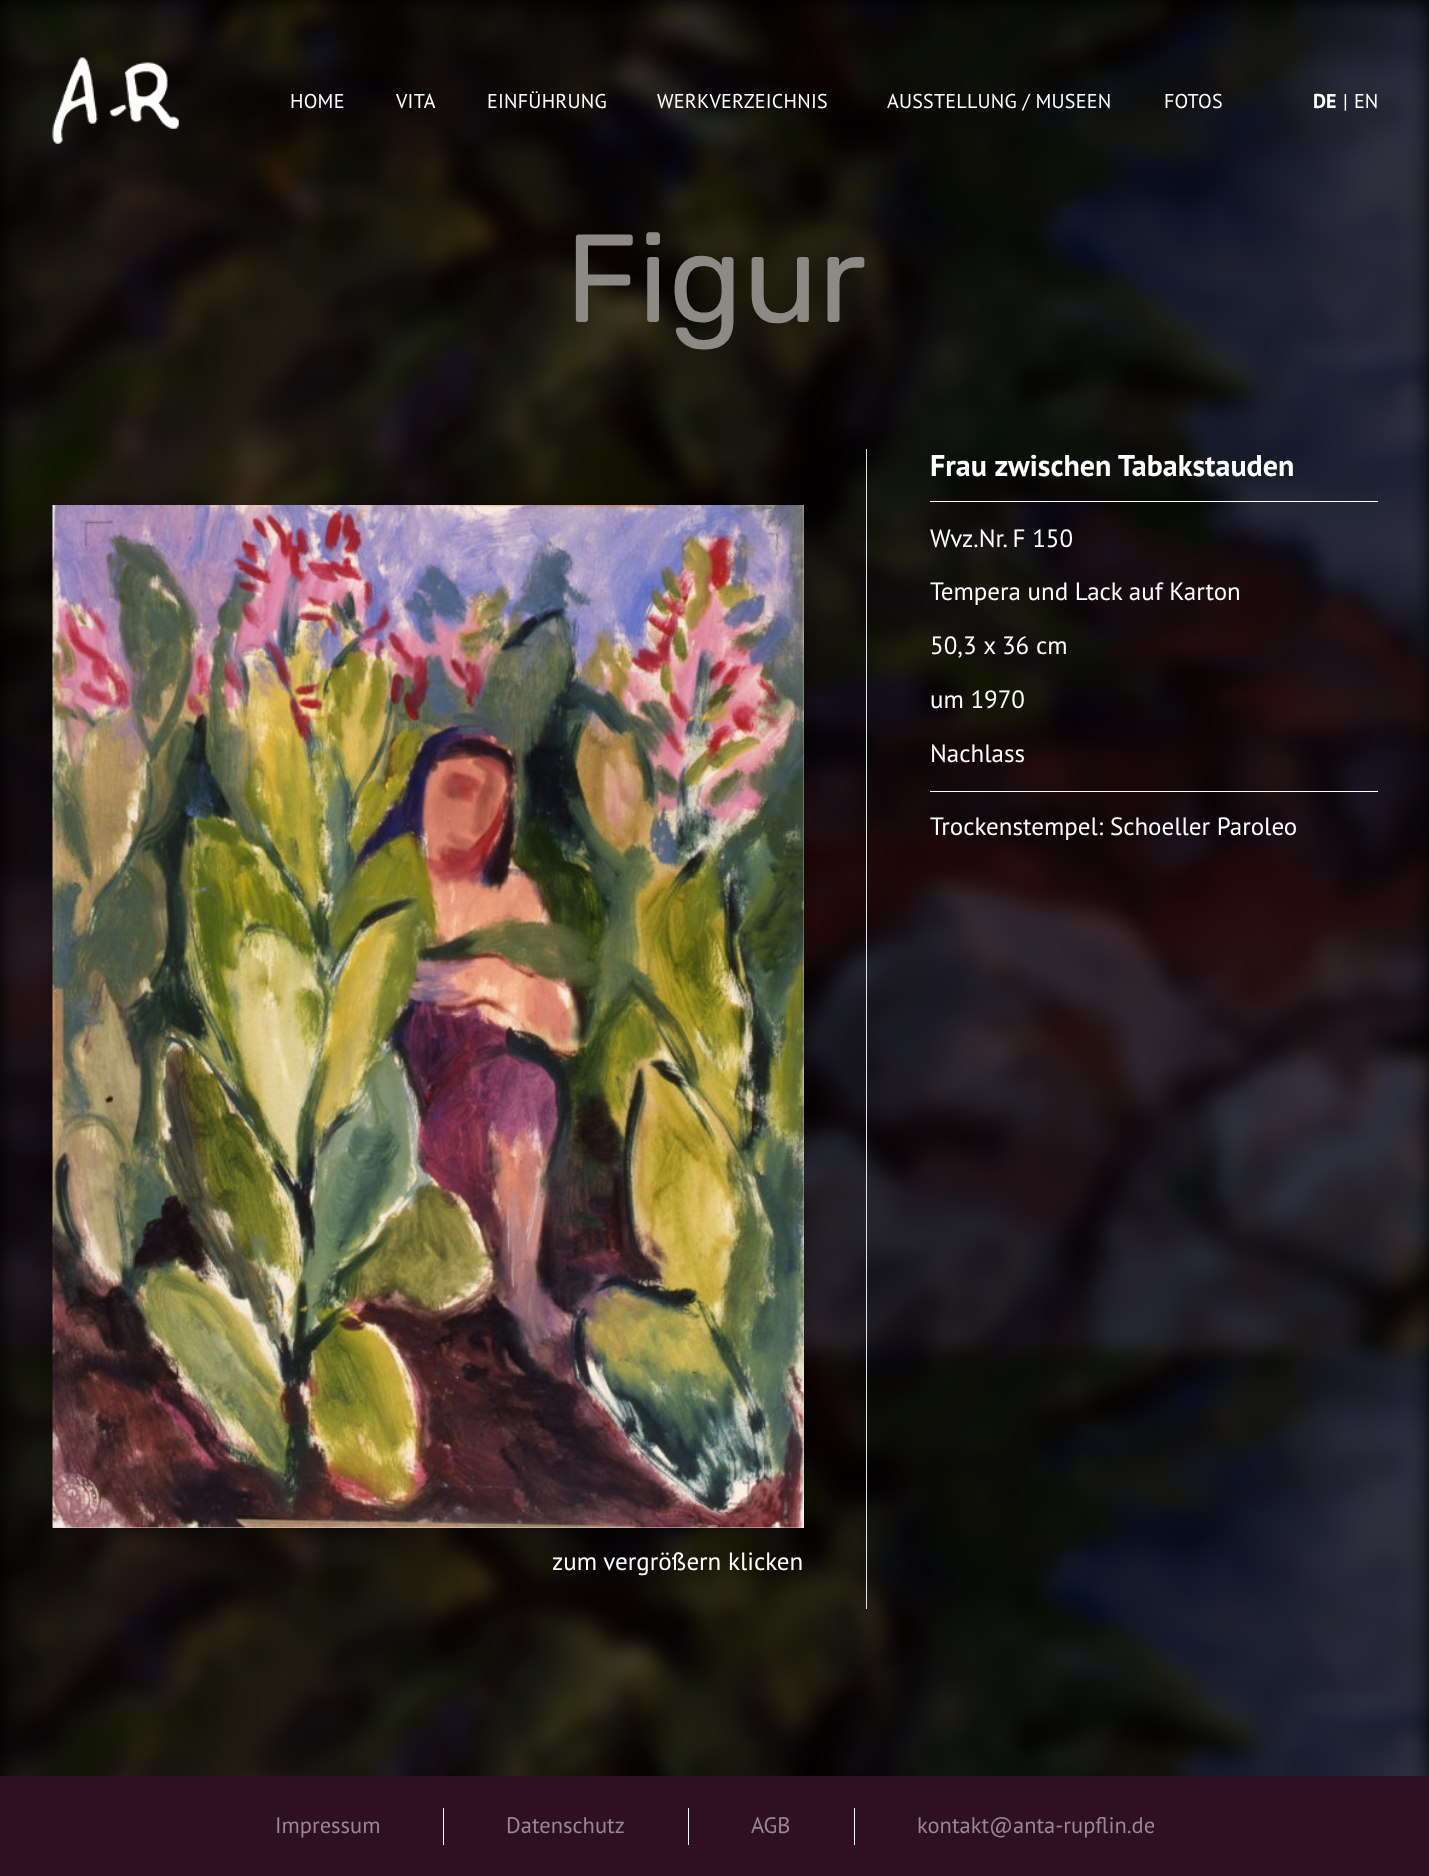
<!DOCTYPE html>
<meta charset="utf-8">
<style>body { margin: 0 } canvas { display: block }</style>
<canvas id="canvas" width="1429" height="1876"></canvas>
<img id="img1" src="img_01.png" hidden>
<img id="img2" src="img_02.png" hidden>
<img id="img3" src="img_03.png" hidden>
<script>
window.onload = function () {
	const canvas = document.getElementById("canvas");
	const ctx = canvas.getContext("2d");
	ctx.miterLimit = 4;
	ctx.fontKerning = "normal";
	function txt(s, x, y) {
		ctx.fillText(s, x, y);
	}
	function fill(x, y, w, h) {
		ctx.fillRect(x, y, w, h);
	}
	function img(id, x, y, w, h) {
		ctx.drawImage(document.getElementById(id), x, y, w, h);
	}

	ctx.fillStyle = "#000000";
	fill(0, 0, 1429, 1876);
	img("img1", 0, 0, 1429, 1776);
	img("img2", 52, 57, 127, 87);
	ctx.fillStyle = "#FFFFFF";
	fill(930, 501, 448, 1);
	fill(930, 791, 448, 1);
	ctx.fillStyle = "#DEE2E6";
	fill(866, 449, 1, 1160);
	ctx.fillStyle = "#FFFFFF";
	fill(53, 505, 751, 1023);
	ctx.fillStyle = "rgba(0, 0, 0, 0.2)";
	ctx.filter = "blur(6px)";
	ctx.beginPath();
	ctx.rect(51, 506, 754, 1025);
	ctx.fill();
	ctx.filter = "none";
	img("img3", 52, 505, 752, 1023);
	ctx.fillStyle = "#2F1023";
	fill(0, 1776, 1429, 100);
	ctx.fillStyle = "#FFFFFF";
	fill(443, 1808, 1, 37);
	fill(688, 1808, 1, 37);
	fill(854, 1808, 1, 37);
	ctx.letterSpacing = "0.25px";
	ctx.font = "20px PT Sans";
	txt("HOME", 290, 108);
	txt("VITA", 396, 108);
	txt("EINFÜHRUNG", 487, 108);
	txt("WERKVERZEICHNIS", 657, 108);
	txt("AUSSTELLUNG / MUSEEN", 887, 108);
	txt("FOTOS", 1164, 108);
	ctx.letterSpacing = "0px";
	ctx.font = "bold 20px PT Sans";
	txt("DE", 1313, 108);
	ctx.font = "20px PT Sans";
	txt("|", 1343, 108);
	txt("EN", 1354, 108);
	ctx.font = "125px Rubik";
	ctx.fillStyle = "#8B8A85";
	txt("Figur", 565, 322);
	ctx.font = "bold 30px PT Sans";
	ctx.fillStyle = "#FFFFFF";
	txt("Frau zwischen Tabakstauden", 930, 476);
	ctx.font = "25px PT Sans";
	txt("Wvz.Nr. F 150", 930, 547);
	txt("Tempera und Lack auf Karton", 930, 600);
	txt("50,3 x 36 cm", 930, 654);
	txt("um 1970", 930, 708);
	txt("Nachlass", 930, 762);
	txt("Trockenstempel: Schoeller Paroleo", 930, 835);
	txt("zum vergrößern klicken", 552, 1570);
	ctx.font = "22.5px PT Sans";
	ctx.fillStyle = "#978891";
	txt("Impressum", 275, 1833);
	txt("Datenschutz", 506, 1833);
	txt("AGB", 751, 1833);
	txt("kontakt@anta-rupflin.de", 917, 1833);
};
</script>
